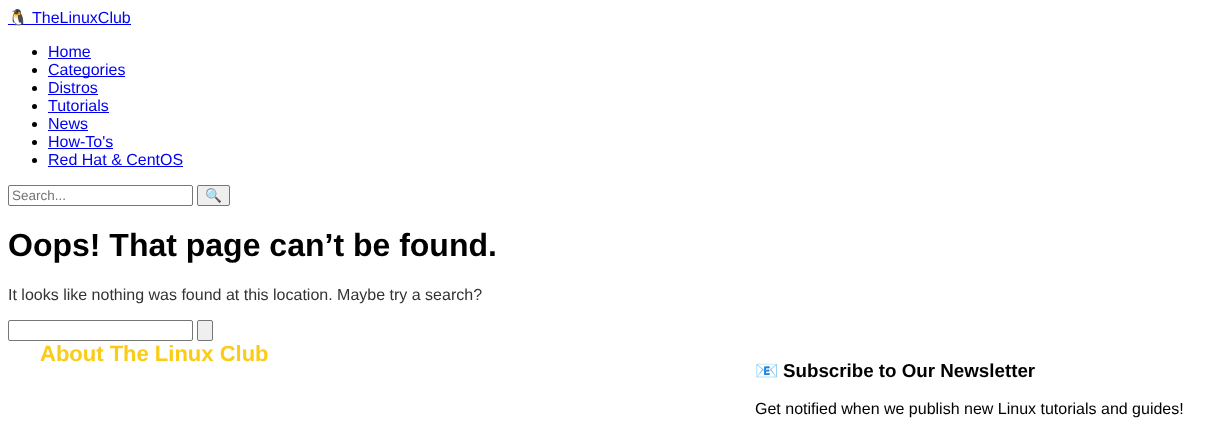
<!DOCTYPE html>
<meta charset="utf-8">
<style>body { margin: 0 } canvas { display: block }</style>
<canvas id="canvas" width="1218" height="432"></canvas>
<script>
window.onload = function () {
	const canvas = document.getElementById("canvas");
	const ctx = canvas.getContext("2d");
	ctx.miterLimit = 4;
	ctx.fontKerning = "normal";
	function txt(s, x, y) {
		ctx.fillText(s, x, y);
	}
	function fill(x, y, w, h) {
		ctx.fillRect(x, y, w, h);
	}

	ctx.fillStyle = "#FFFFFF";
	fill(0, 0, 1218, 432);
	ctx.fillStyle = "#0000EE";
	fill(8, 24, 123, 1);
	ctx.fillStyle = "#000000";
	ctx.beginPath();
	ctx.arc(34.5, 52.5, 2.5, 0, Math.PI * 2);
	ctx.fill();
	ctx.fillStyle = "#0000EE";
	fill(48, 58, 43, 1);
	ctx.fillStyle = "#000000";
	ctx.beginPath();
	ctx.arc(34.5, 70.5, 2.5, 0, Math.PI * 2);
	ctx.fill();
	ctx.fillStyle = "#0000EE";
	fill(48, 76, 77, 1);
	ctx.fillStyle = "#000000";
	ctx.beginPath();
	ctx.arc(34.5, 88.5, 2.5, 0, Math.PI * 2);
	ctx.fill();
	ctx.fillStyle = "#0000EE";
	fill(48, 94, 50, 1);
	ctx.fillStyle = "#000000";
	ctx.beginPath();
	ctx.arc(34.5, 106.5, 2.5, 0, Math.PI * 2);
	ctx.fill();
	ctx.fillStyle = "#0000EE";
	fill(48, 112, 61, 1);
	ctx.fillStyle = "#000000";
	ctx.beginPath();
	ctx.arc(34.5, 124.5, 2.5, 0, Math.PI * 2);
	ctx.fill();
	ctx.fillStyle = "#0000EE";
	fill(48, 130, 40, 1);
	ctx.fillStyle = "#000000";
	ctx.beginPath();
	ctx.arc(34.5, 142.5, 2.5, 0, Math.PI * 2);
	ctx.fill();
	ctx.fillStyle = "#0000EE";
	fill(48, 148, 65, 1);
	ctx.fillStyle = "#000000";
	ctx.beginPath();
	ctx.arc(34.5, 160.5, 2.5, 0, Math.PI * 2);
	ctx.fill();
	ctx.fillStyle = "#0000EE";
	fill(48, 166, 135, 1);
	ctx.beginPath();
	ctx.roundRect(8.5, 185.5, 184, 20, 1.5);
	ctx.strokeStyle = "#767676";
	ctx.stroke();
	ctx.fillStyle = "#EFEFEF";
	ctx.beginPath();
	ctx.roundRect(197.5, 185.5, 32, 20, 1.5);
	ctx.fill();
	ctx.stroke();
	ctx.beginPath();
	ctx.roundRect(8.5, 320.5, 184, 20, 1.5);
	ctx.stroke();
	ctx.beginPath();
	ctx.roundRect(197.5, 320.5, 15, 20, 1.5);
	ctx.fill();
	ctx.stroke();
	ctx.font = "16px Noto Color Emoji";
	ctx.fillStyle = "#0000EE";
	txt("🐧", 8, 23);
	ctx.font = "16px Liberation Sans";
	txt("TheLinuxClub", 32, 23);
	txt("Home", 48, 57);
	txt("Categories", 48, 75);
	txt("Distros", 48, 93);
	txt("Tutorials", 48, 111);
	txt("News", 48, 129);
	txt("How-To's", 48, 147);
	txt("Red Hat & CentOS", 48, 165);
	ctx.font = "13.5px Liberation Sans";
	ctx.fillStyle = "#757575";
	txt("Search...", 12, 200);
	ctx.font = "13.5px Noto Color Emoji";
	ctx.fillStyle = "#000000";
	txt("🔍", 205, 200);
	ctx.font = "bold 32px Liberation Sans";
	txt("Oops! That page can’t be found.", 8, 256);
	ctx.font = "16px Liberation Sans";
	ctx.fillStyle = "#333333";
	txt("It looks like nothing was found at this location. Maybe try a search?", 8, 300);
	ctx.font = "bold 22px Liberation Sans";
	ctx.fillStyle = "#FACC15";
	txt("About The Linux Club", 40, 361);
	ctx.font = "bold 18.75px Noto Color Emoji";
	ctx.fillStyle = "#000000";
	txt("📧", 755, 377);
	ctx.font = "bold 18.75px Liberation Sans";
	txt("Subscribe to Our Newsletter", 783, 377);
	ctx.font = "16px Liberation Sans";
	txt("Get notified when we publish new Linux tutorials and guides!", 755, 414);
};
</script>
